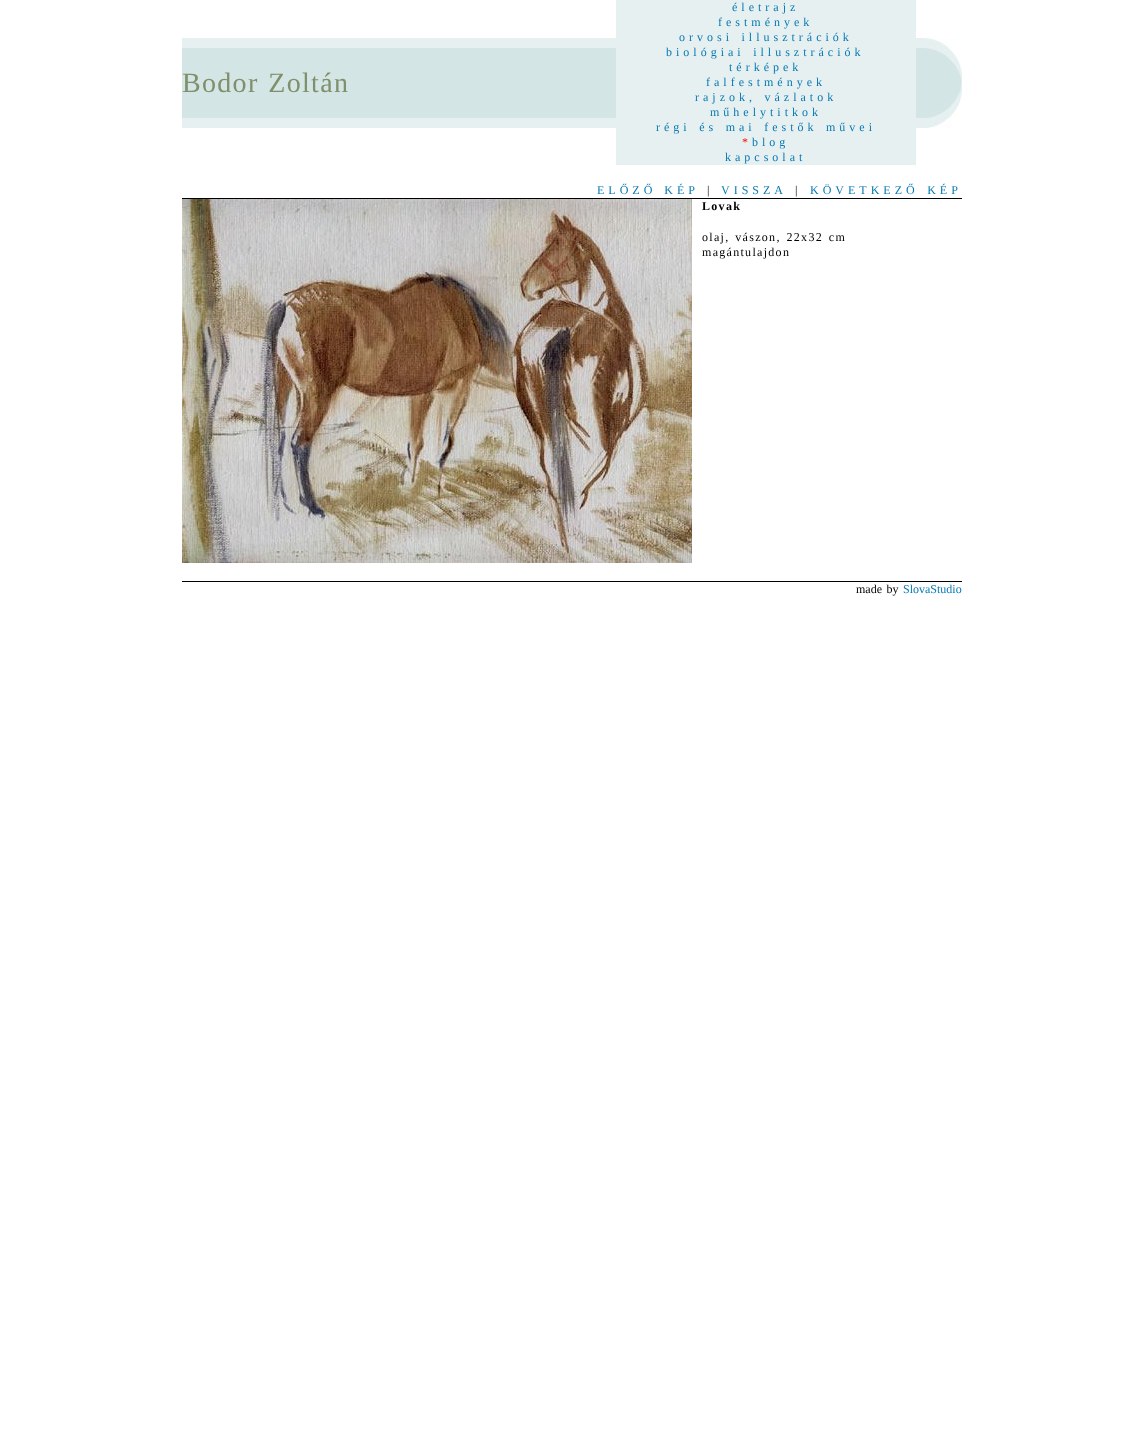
<!DOCTYPE html>
<meta charset="utf-8">
<style>body { margin: 0 } canvas { display: block }</style>
<canvas id="canvas" width="1143" height="1451"></canvas>
<img id="img1" src="img_01.png" hidden>
<img id="img2" src="img_02.png" hidden>
<script>
window.onload = function () {
	const canvas = document.getElementById("canvas");
	const ctx = canvas.getContext("2d");
	ctx.miterLimit = 4;
	ctx.fontKerning = "normal";
	function txt(s, x, y) {
		ctx.fillText(s, x, y);
	}
	function fill(x, y, w, h) {
		ctx.fillRect(x, y, w, h);
	}
	function img(id, x, y, w, h) {
		ctx.drawImage(document.getElementById(id), x, y, w, h);
	}

	ctx.fillStyle = "#FFFFFF";
	fill(0, 0, 1143, 1451);
	ctx.fillStyle = "#E6F0F0";
	fill(182, 38, 434, 10);
	ctx.fillStyle = "#D4E5E5";
	fill(182, 48, 434, 70);
	ctx.fillStyle = "#E6F0F0";
	fill(182, 118, 434, 10);
	fill(616, 0, 300, 165);
	fill(916, 38, 10, 10);
	ctx.fillStyle = "#D4E5E5";
	fill(916, 48, 10, 70);
	ctx.fillStyle = "#E6F0F0";
	fill(916, 118, 10, 10);
	img("img1", 926, 38, 36, 90);
	ctx.fillStyle = "#000000";
	fill(182, 198, 780, 1);
	img("img2", 182, 199, 510, 364);
	fill(182, 581, 780, 1);
	ctx.letterSpacing = "1.3px";
	ctx.wordSpacing = "1.5px";
	ctx.font = "28px Liberation Serif";
	ctx.fillStyle = "#808F6C";
	txt("Bodor Zoltán", 182, 92);
	ctx.letterSpacing = "4px";
	ctx.wordSpacing = "0px";
	ctx.font = "12px Liberation Serif";
	ctx.fillStyle = "#0879B3";
	txt("életrajz", 732, 11);
	txt("festmények", 718, 26);
	ctx.wordSpacing = "1.5px";
	txt("orvosi illusztrációk", 679, 41);
	txt("biológiai illusztrációk", 666, 56);
	ctx.wordSpacing = "0px";
	txt("térképek", 729, 71);
	txt("falfestmények", 706, 86);
	ctx.wordSpacing = "1.5px";
	txt("rajzok, vázlatok", 695, 101);
	ctx.wordSpacing = "0px";
	txt("műhelytitkok", 710, 116);
	ctx.wordSpacing = "1.5px";
	txt("régi és mai festők művei", 656, 131);
	ctx.wordSpacing = "0px";
	ctx.fillStyle = "#FF0000";
	txt("*", 742, 146);
	ctx.fillStyle = "#0879B3";
	txt("blog", 752, 146);
	txt("kapcsolat", 725, 161);
	ctx.wordSpacing = "1px";
	txt("ELŐZŐ KÉP", 597, 194);
	ctx.wordSpacing = "0px";
	ctx.fillStyle = "#000000";
	txt("|", 707, 194);
	ctx.fillStyle = "#0879B3";
	txt("VISSZA", 721, 194);
	ctx.fillStyle = "#000000";
	txt("|", 795, 194);
	ctx.wordSpacing = "1.5px";
	ctx.fillStyle = "#0879B3";
	txt("KÖVETKEZŐ KÉP", 810, 194);
	ctx.letterSpacing = "1.3px";
	ctx.wordSpacing = "0px";
	ctx.font = "bold 12px Liberation Serif";
	ctx.fillStyle = "#000000";
	txt("Lovak", 702, 210);
	ctx.wordSpacing = "1.5px";
	ctx.font = "12px Liberation Serif";
	txt("olaj, vászon, 22x32 cm", 702, 241);
	ctx.wordSpacing = "0px";
	txt("magántulajdon", 702, 256);
	ctx.letterSpacing = "0px";
	ctx.wordSpacing = "1.5px";
	txt("made by", 856, 593);
	ctx.wordSpacing = "0px";
	ctx.fillStyle = "#0879B3";
	txt("SlovaStudio", 903, 593);
};
</script>
